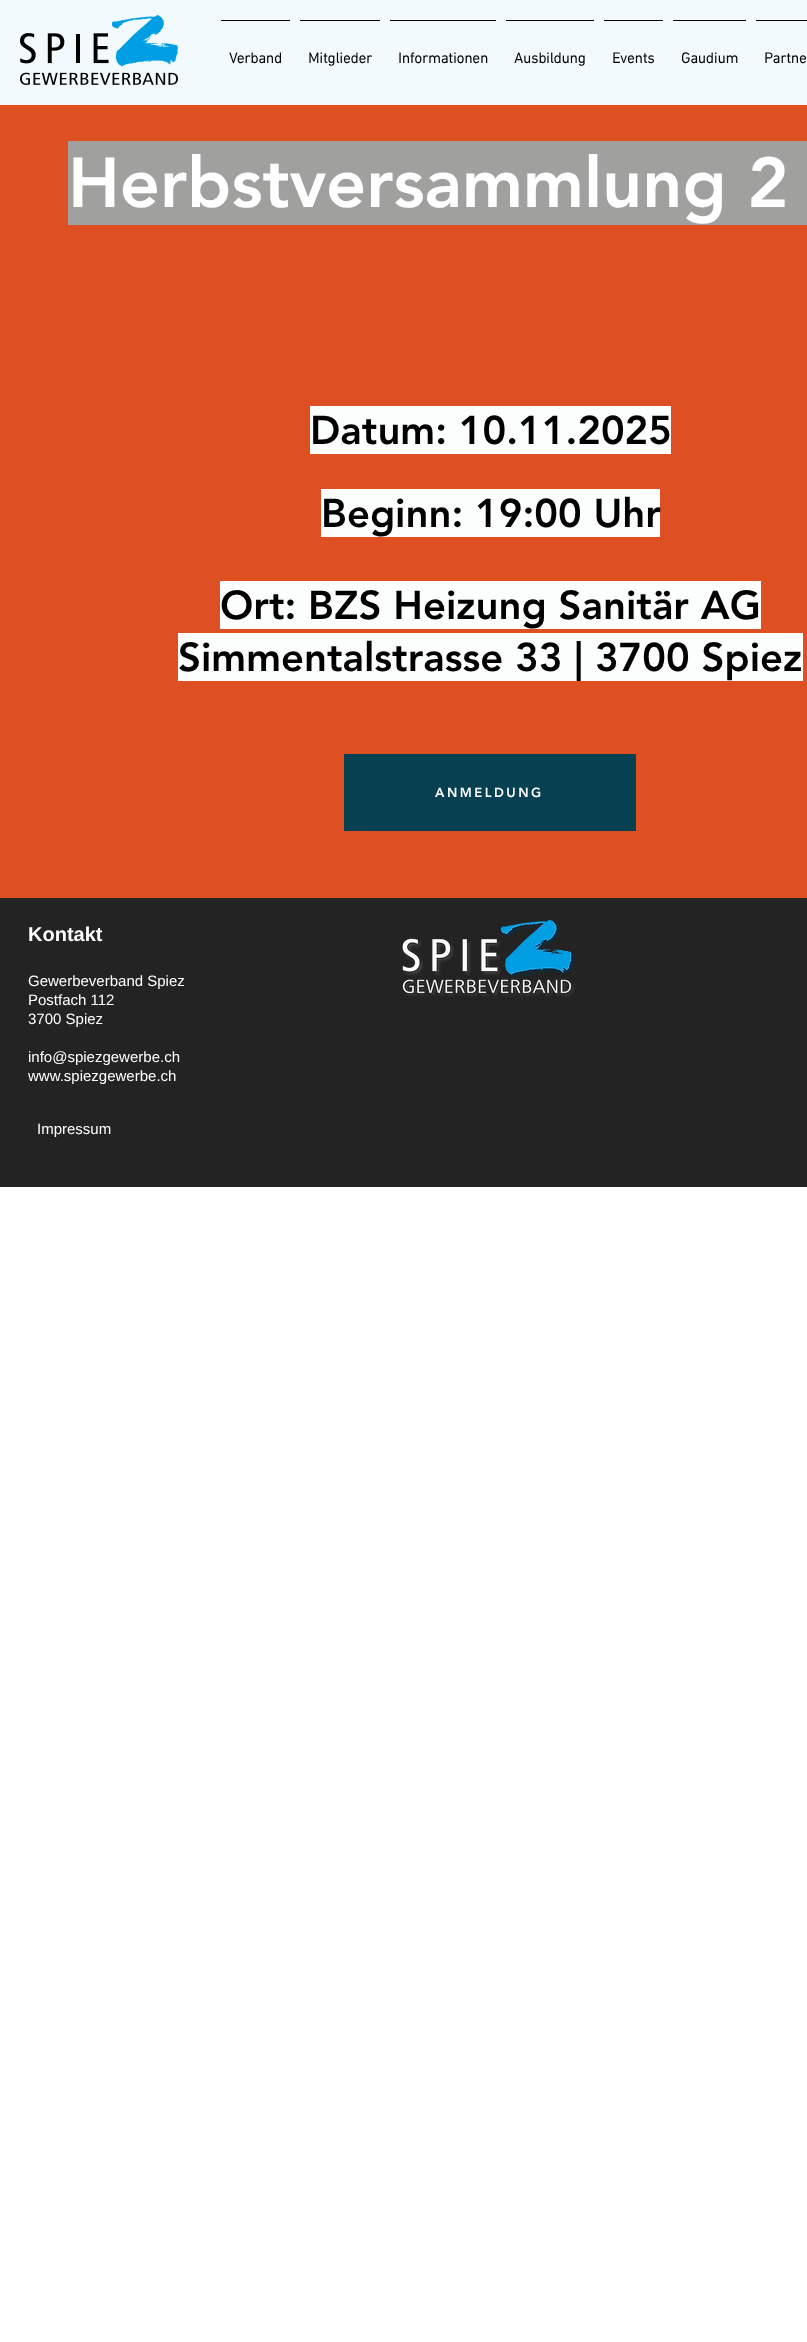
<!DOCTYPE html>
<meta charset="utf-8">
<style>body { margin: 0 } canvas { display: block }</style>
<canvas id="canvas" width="807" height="2342"></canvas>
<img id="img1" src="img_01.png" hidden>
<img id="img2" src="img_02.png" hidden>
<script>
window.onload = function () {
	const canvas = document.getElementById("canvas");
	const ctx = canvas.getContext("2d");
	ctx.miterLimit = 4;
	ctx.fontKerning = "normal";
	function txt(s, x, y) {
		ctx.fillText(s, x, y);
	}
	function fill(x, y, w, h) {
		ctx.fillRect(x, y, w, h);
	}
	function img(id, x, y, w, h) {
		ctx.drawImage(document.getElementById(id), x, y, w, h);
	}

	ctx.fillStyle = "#FFFFFF";
	fill(0, 0, 807, 2342);
	ctx.fillStyle = "#F2FAFD";
	fill(0, 0, 807, 105);
	img("img1", 20, 15, 158, 70);
	ctx.fillStyle = "#000000";
	fill(221, 20, 69, 1);
	fill(300, 20, 80, 1);
	fill(390, 20, 106, 1);
	fill(506, 20, 88, 1);
	fill(604, 20, 59, 1);
	fill(673, 20, 73, 1);
	fill(756, 20, 51, 1);
	ctx.fillStyle = "#DE5021";
	fill(0, 105, 807, 793);
	ctx.fillStyle = "#A0A09F";
	fill(68, 141, 739, 84);
	ctx.fillStyle = "#FCFEFD";
	fill(310, 406, 361, 48);
	fill(321, 489, 339, 48);
	fill(220, 581, 541, 48);
	fill(178, 633, 625, 48);
	ctx.fillStyle = "#074151";
	fill(344, 754, 292, 77);
	ctx.fillStyle = "#242323";
	fill(0, 898, 807, 289);
	img("img2", 402, 920, 173, 77);
	ctx.font = "bold 15px 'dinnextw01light'";
	ctx.fillStyle = "#000000";
	txt("Verband", 229, 63);
	txt("Mitglieder", 308, 63);
	txt("Informationen", 398, 63);
	txt("Ausbildung", 514, 63);
	txt("Events", 612, 63);
	txt("Gaudium", 681, 63);
	txt("Partne", 764, 63);
	ctx.font = "900 70px 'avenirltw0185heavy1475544'";
	ctx.fillStyle = "#FFFFFF";
	txt("Herbstversammlung 2", 68, 207);
	ctx.font = "900 40px 'avenirltw0185heavy1475544'";
	ctx.fillStyle = "#000000";
	txt("Datum: 10.11.2025", 310, 444);
	txt("Beginn: 19:00 Uhr", 321, 527);
	txt("Ort: BZS Heizung Sanitär AG", 220, 619);
	txt("Simmentalstrasse 33 | 3700 Spiez", 178, 671);
	ctx.letterSpacing = "2.5px";
	ctx.font = "900 13px 'avenirltw0185heavy1475544'";
	ctx.fillStyle = "#FFFFFF";
	txt("ANMELDUNG", 435, 797);
	ctx.letterSpacing = "0px";
	ctx.font = "bold 20px Liberation Sans";
	txt("Kontakt", 28, 941);
	ctx.font = "15px Liberation Sans";
	txt("Gewerbeverband Spiez", 28, 986);
	txt("Postfach 112", 28, 1005);
	txt("3700 Spiez", 28, 1024);
	txt("info@spiezgewerbe.ch", 28, 1062);
	txt("www.spiezgewerbe.ch", 28, 1081);
	txt("Impressum", 37, 1134);
};
</script>
